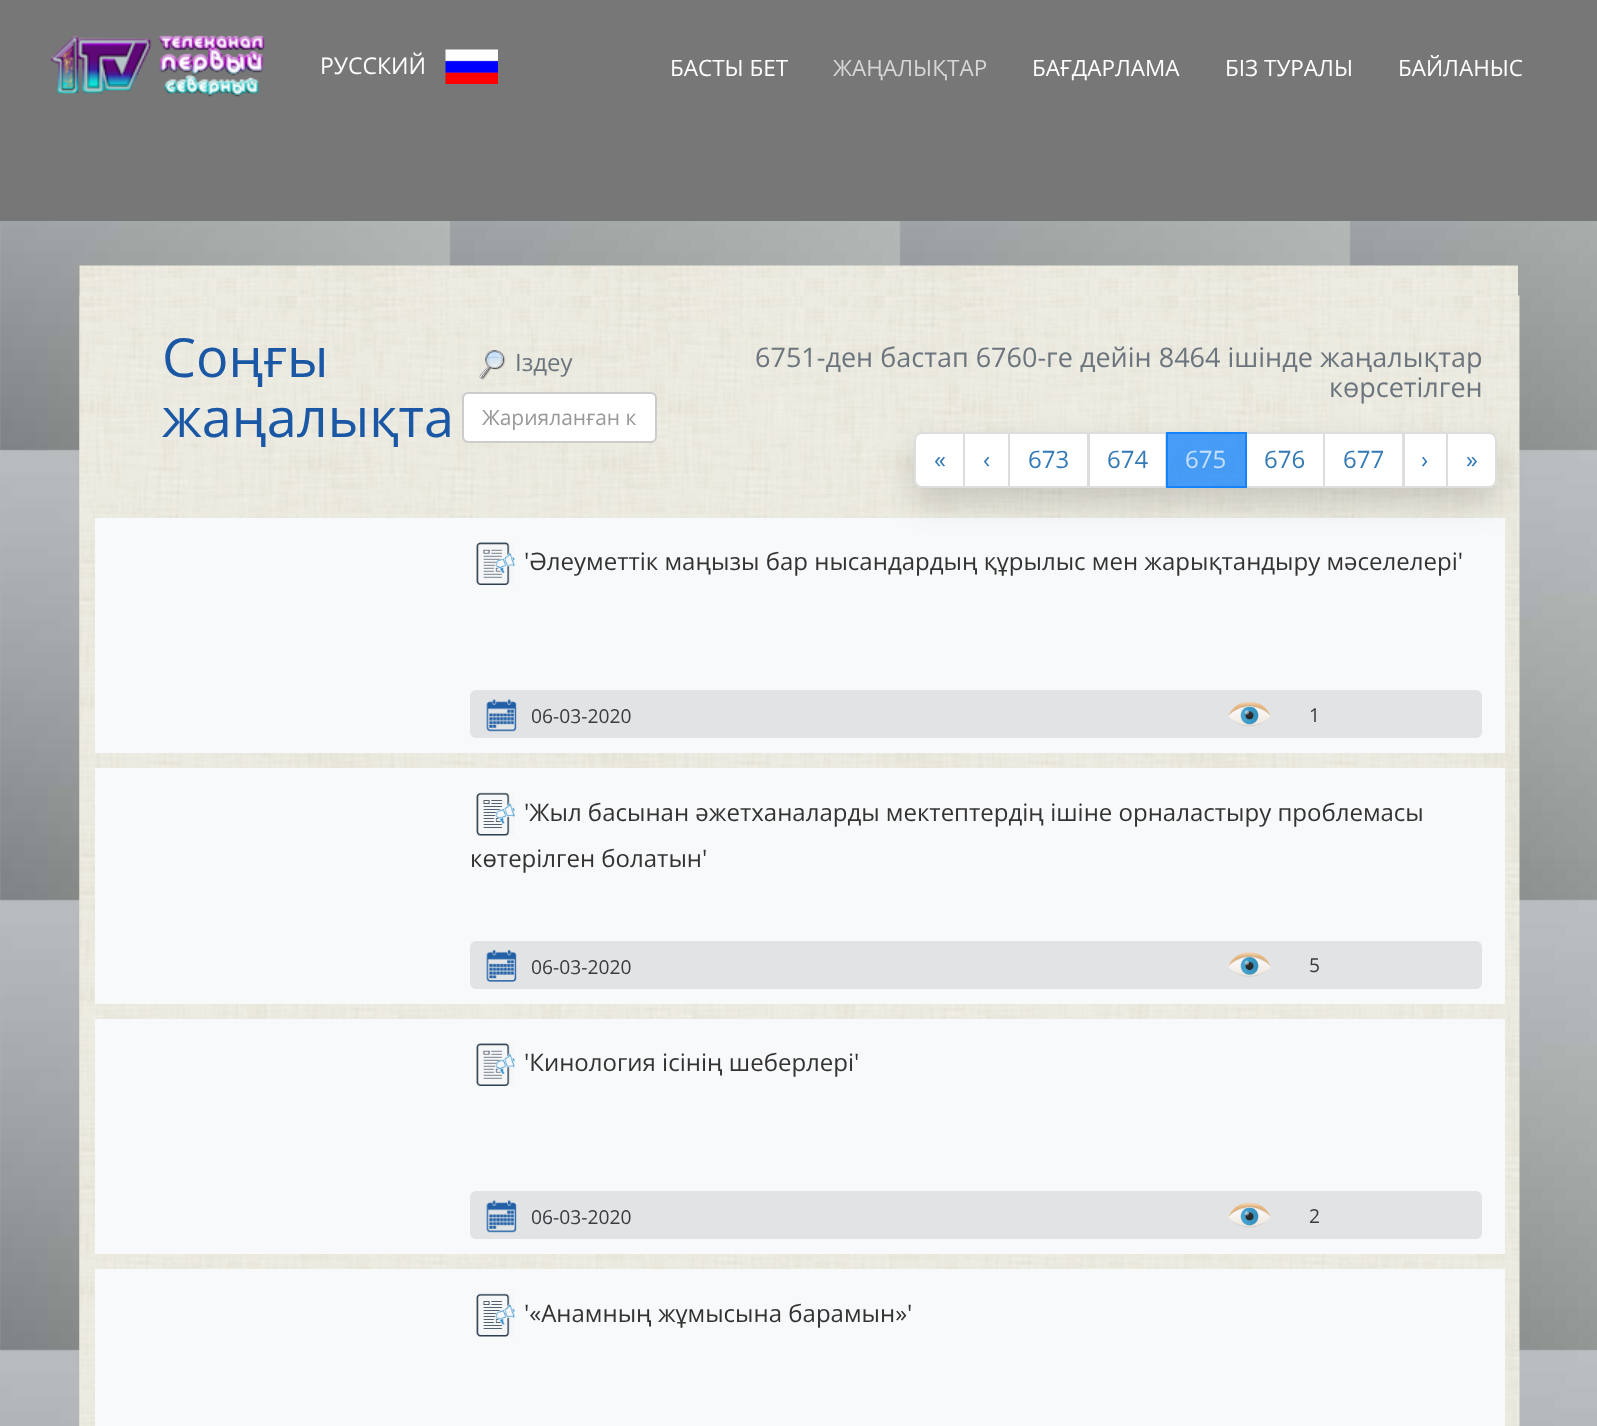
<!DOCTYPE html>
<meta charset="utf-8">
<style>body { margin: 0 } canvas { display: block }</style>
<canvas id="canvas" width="1597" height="1426"></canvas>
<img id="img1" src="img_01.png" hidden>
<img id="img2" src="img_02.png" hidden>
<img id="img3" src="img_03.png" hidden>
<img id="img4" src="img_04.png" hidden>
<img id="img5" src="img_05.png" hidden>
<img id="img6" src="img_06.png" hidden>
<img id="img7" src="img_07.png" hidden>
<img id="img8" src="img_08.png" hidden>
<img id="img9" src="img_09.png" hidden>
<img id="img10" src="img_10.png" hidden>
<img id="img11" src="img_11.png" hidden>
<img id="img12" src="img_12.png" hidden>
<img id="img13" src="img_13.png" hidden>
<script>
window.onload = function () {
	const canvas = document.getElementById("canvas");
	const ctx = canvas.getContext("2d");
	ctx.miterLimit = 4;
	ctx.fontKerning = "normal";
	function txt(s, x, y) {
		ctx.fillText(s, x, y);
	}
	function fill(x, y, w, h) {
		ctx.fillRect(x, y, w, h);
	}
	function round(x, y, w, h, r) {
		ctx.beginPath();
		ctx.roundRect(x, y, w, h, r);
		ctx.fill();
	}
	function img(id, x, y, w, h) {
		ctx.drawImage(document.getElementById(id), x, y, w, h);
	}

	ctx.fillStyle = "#FFFFFF";
	fill(0, 0, 1597, 1426);
	img("img1", 0, 221, 1597, 1205);
	ctx.fillStyle = "#777777";
	fill(0, 0, 1597, 221);
	img("img2", 50, 35, 215, 62);
	img("img3", 445, 49, 53, 35);
	img("img4", 50, 35, 215, 62);
	img("img5", 79, 265, 1439, 1161);
	img("img6", 79, 295, 1441, 1131);
	img("img7", 479, 350, 27, 30);
	ctx.fillStyle = "#FFFFFF";
	round(464, 393, 192, 48, 5);
	ctx.fillStyle = "rgba(0, 0, 0, 0.07)";
	ctx.beginPath();
	ctx.moveTo(468, 394);
	ctx.lineTo(651, 394);
	ctx.bezierCurveTo(653, 394, 656, 397, 656, 399);
	ctx.lineTo(656, 398);
	ctx.bezierCurveTo(656, 395, 654, 393, 651, 393);
	ctx.lineTo(469, 393);
	ctx.bezierCurveTo(466, 393, 464, 395, 464, 398);
	ctx.lineTo(464, 399);
	ctx.bezierCurveTo(464, 397, 466, 394, 468, 394);
	ctx.closePath();
	ctx.fill();
	ctx.beginPath();
	ctx.roundRect(463, 393, 193, 49, 5);
	ctx.strokeStyle = "#CCCCCC";
	ctx.lineWidth = 2;
	ctx.stroke();
	ctx.fillStyle = "#F8F9FA";
	fill(95, 518, 1410, 235);
	ctx.save();
	ctx.beginPath();
	ctx.moveTo(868, 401);
	ctx.lineTo(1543, 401);
	ctx.lineTo(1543, 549);
	ctx.lineTo(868, 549);
	ctx.closePath();
	ctx.moveTo(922, 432);
	ctx.lineTo(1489, 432);
	ctx.bezierCurveTo(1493.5, 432, 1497, 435.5, 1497, 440);
	ctx.lineTo(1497, 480);
	ctx.bezierCurveTo(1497, 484.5, 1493.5, 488, 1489, 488);
	ctx.lineTo(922, 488);
	ctx.bezierCurveTo(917.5, 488, 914, 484.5, 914, 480);
	ctx.lineTo(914, 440);
	ctx.bezierCurveTo(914, 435.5, 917.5, 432, 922, 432);
	ctx.closePath();
	ctx.clip("evenodd");
	ctx.fillStyle = "rgba(0, 0, 0, 0.15)";
	ctx.filter = "blur(15px)";
	ctx.beginPath();
	ctx.roundRect(914, 447, 583, 56, 8);
	ctx.fill();
	ctx.filter = "none";
	ctx.restore();
	ctx.fillStyle = "#FFFFFF";
	ctx.beginPath();
	ctx.roundRect(915, 433, 49, 54, [7, 0, 0, 7]);
	ctx.fill();
	ctx.strokeStyle = "#DDDDDD";
	ctx.stroke();
	ctx.beginPath();
	ctx.rect(964, 433, 45, 54);
	ctx.fill();
	ctx.stroke();
	ctx.beginPath();
	ctx.rect(1009, 433, 79, 54);
	ctx.fill();
	ctx.stroke();
	ctx.beginPath();
	ctx.rect(1089, 433, 77, 54);
	ctx.fill();
	ctx.stroke();
	ctx.beginPath();
	ctx.rect(1246, 433, 78, 54);
	ctx.fill();
	ctx.stroke();
	ctx.fillStyle = "rgba(0, 123, 255, 0.7)";
	fill(1166, 432, 81, 56);
	ctx.strokeStyle = "rgba(0, 123, 255, 0.7)";
	ctx.strokeRect(1167, 433, 79, 54);
	ctx.fillStyle = "#FFFFFF";
	ctx.beginPath();
	ctx.rect(1324, 433, 79, 54);
	ctx.fill();
	ctx.strokeStyle = "#DDDDDD";
	ctx.stroke();
	ctx.beginPath();
	ctx.rect(1404, 433, 43, 54);
	ctx.fill();
	ctx.stroke();
	ctx.beginPath();
	ctx.roundRect(1447, 433, 49, 54, [0, 7, 7, 0]);
	ctx.fill();
	ctx.stroke();
	img("img8", 476, 542, 39, 43);
	ctx.fillStyle = "#E2E3E5";
	round(470, 690, 1012, 48, 6);
	img("img9", 486, 699, 31, 33);
	img("img10", 1228, 701, 43, 26);
	ctx.fillStyle = "#F8F9FA";
	fill(95, 768, 1410, 236);
	img("img11", 476, 792, 39, 44);
	ctx.fillStyle = "#E2E3E5";
	round(470, 941, 1012, 48, 6);
	img("img12", 486, 950, 31, 32);
	img("img13", 1228, 952, 43, 25);
	ctx.fillStyle = "#F8F9FA";
	fill(95, 1019, 1410, 235);
	img("img8", 476, 1043, 39, 43);
	ctx.fillStyle = "#E2E3E5";
	round(470, 1191, 1012, 48, 6);
	img("img9", 486, 1200, 31, 33);
	img("img10", 1228, 1202, 43, 26);
	ctx.fillStyle = "#F8F9FA";
	fill(95, 1269, 1410, 157);
	img("img11", 476, 1293, 39, 44);
	ctx.font = "23px Open Sans";
	ctx.fillStyle = "#FFFFFF";
	txt("РУССКИЙ", 320, 74);
	ctx.font = "22.5px Open Sans";
	txt("БАСТЫ БЕТ", 670, 76);
	ctx.fillStyle = "#D6D6D6";
	txt("ЖАҢАЛЫҚТАР", 833, 76);
	ctx.fillStyle = "#FFFFFF";
	txt("БАҒДАРЛАМА", 1032, 76);
	txt("БІЗ ТУРАЛЫ", 1225, 76);
	txt("БАЙЛАНЫС", 1398, 76);
	ctx.font = "54px Open Sans";
	ctx.fillStyle = "#1A57A5";
	txt("Соңғы", 162, 377);
	txt("жаңалықта", 162, 437);
	ctx.font = "24px Open Sans";
	ctx.fillStyle = "#6C757D";
	txt("Iздеу", 515, 371);
	ctx.font = "21px Open Sans";
	ctx.fillStyle = "#999999";
	txt("Жарияланған к", 482, 425);
	ctx.font = "27px Open Sans";
	ctx.fillStyle = "#6C757D";
	txt("6751-ден бастап 6760-ге дейін 8464 ішінде жаңалықтар", 755, 367);
	txt("көрсетілген", 1329, 397);
	ctx.font = "24px Open Sans";
	ctx.fillStyle = "#337AB7";
	txt("«", 934, 468);
	txt("‹", 983, 468);
	txt("673", 1028, 468);
	txt("674", 1107, 468);
	ctx.fillStyle = "#C7E1FC";
	txt("675", 1185, 468);
	ctx.fillStyle = "#337AB7";
	txt("676", 1264, 468);
	txt("677", 1343, 468);
	txt("›", 1421, 468);
	txt("»", 1466, 468);
	ctx.fillStyle = "#333333";
	txt("'Әлеуметтік маңызы бар нысандардың құрылыс мен жарықтандыру мәселелері'", 524, 570);
	ctx.font = "19.25px Open Sans";
	ctx.fillStyle = "#383D41";
	txt("06-03-2020", 531, 723);
	txt("1", 1309, 722);
	ctx.font = "24px Open Sans";
	ctx.fillStyle = "#333333";
	txt("'Жыл басынан әжетханаларды мектептердің ішіне орналастыру проблемасы", 524, 821);
	txt("көтерілген болатын'", 470, 867);
	ctx.font = "19.25px Open Sans";
	ctx.fillStyle = "#383D41";
	txt("06-03-2020", 531, 974);
	txt("5", 1309, 972);
	ctx.font = "24px Open Sans";
	ctx.fillStyle = "#333333";
	txt("'Кинология ісінің шеберлері'", 524, 1071);
	ctx.font = "19.25px Open Sans";
	ctx.fillStyle = "#383D41";
	txt("06-03-2020", 531, 1224);
	txt("2", 1309, 1223);
	ctx.font = "24px Open Sans";
	ctx.fillStyle = "#333333";
	txt("'«Анамның жұмысына барамын»'", 524, 1322);
};
</script>
